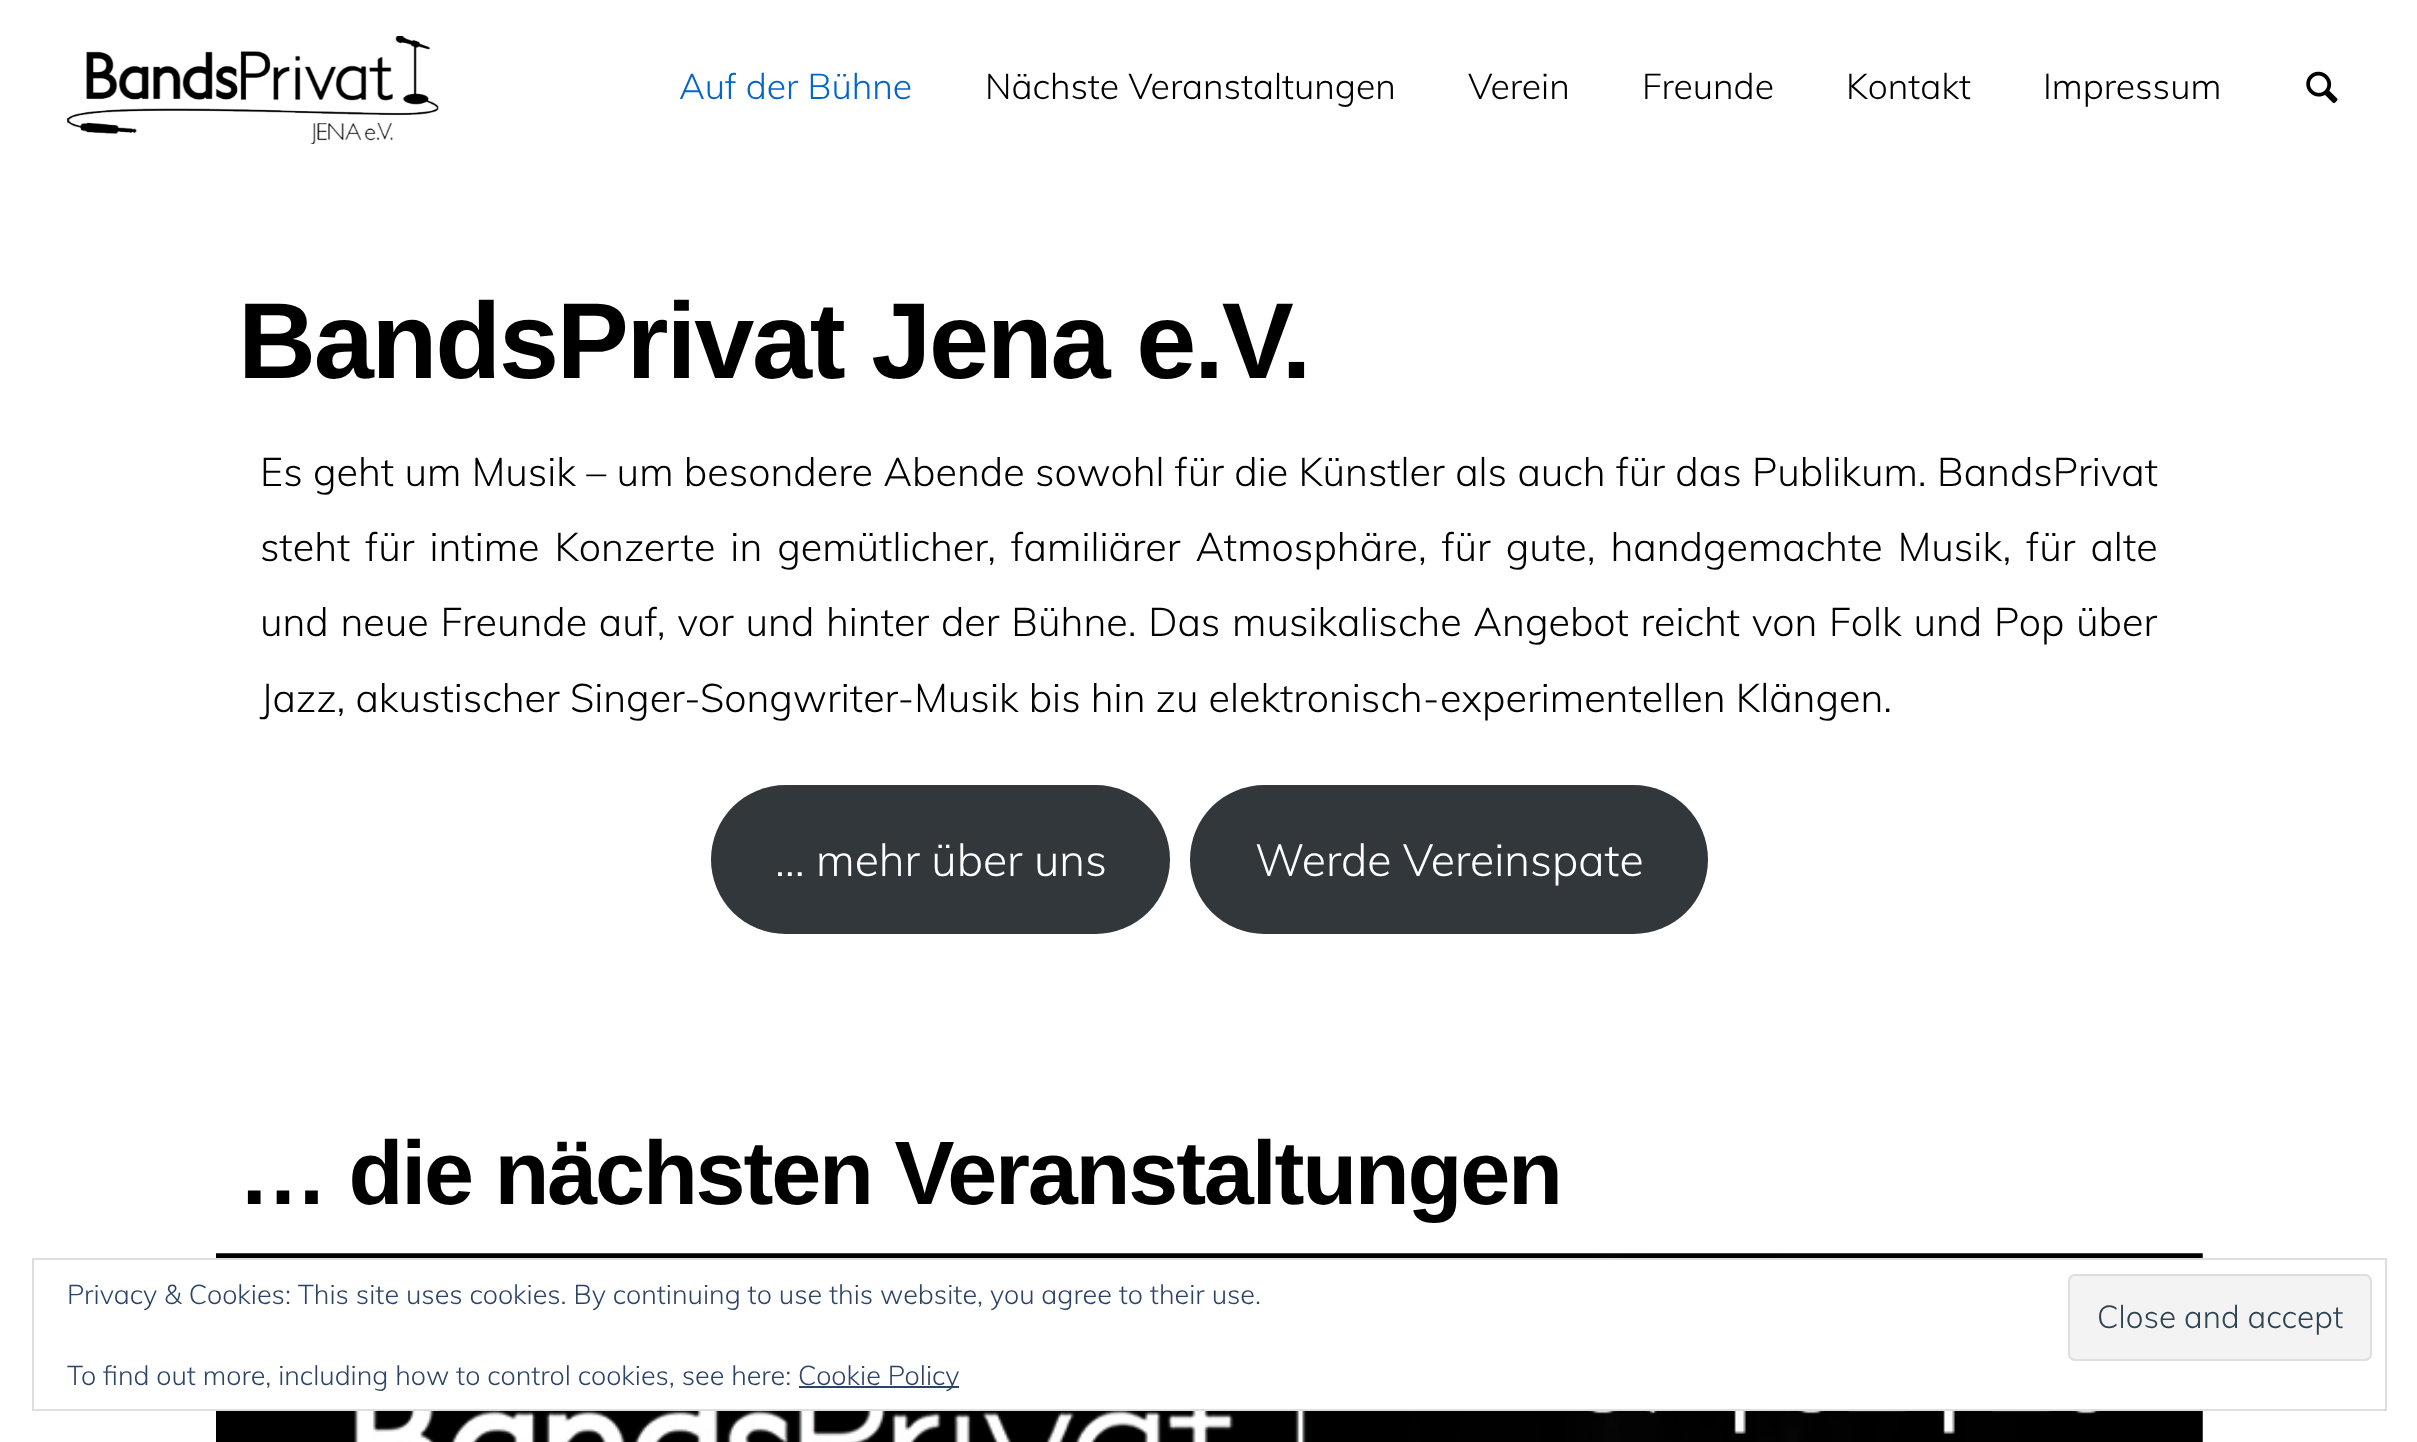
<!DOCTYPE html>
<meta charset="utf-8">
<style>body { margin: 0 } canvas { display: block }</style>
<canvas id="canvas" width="2417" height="1442"></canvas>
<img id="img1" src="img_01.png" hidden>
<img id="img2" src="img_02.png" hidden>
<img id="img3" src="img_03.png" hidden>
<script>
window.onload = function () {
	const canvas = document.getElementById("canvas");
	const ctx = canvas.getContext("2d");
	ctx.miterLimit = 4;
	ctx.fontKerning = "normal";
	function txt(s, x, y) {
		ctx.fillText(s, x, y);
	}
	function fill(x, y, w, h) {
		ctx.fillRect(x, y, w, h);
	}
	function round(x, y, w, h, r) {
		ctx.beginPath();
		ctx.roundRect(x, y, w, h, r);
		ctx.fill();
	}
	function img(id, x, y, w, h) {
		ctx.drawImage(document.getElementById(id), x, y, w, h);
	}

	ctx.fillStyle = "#FFFFFF";
	fill(0, 0, 2417, 1442);
	img("img1", 67, 36, 372, 108);
	img("img2", 2306, 71, 32, 32);
	ctx.fillStyle = "#32373C";
	round(711, 785, 459, 149, 74.5);
	round(1190, 785, 518, 149, 74.5);
	img("img3", 216, 1253, 1987, 189);
	ctx.fillStyle = "#FFFFFF";
	fill(216, 1260, 1987, 149);
	ctx.strokeStyle = "#DEDEDE";
	ctx.lineWidth = 2;
	ctx.strokeRect(33, 1259, 2353, 151);
	ctx.fillStyle = "#F3F3F3";
	ctx.beginPath();
	ctx.roundRect(2069, 1275, 302, 85, 6);
	ctx.fill();
	ctx.stroke();
	ctx.fillStyle = "#2E4467";
	fill(799, 1386, 160, 2);
	ctx.font = "300 35.6px Muli";
	ctx.fillStyle = "#0066CC";
	txt("Auf der Bühne", 679, 99);
	ctx.fillStyle = "#000000";
	txt("Nächste Veranstaltungen", 985, 99);
	txt("Verein", 1468, 99);
	txt("Freunde", 1642, 99);
	txt("Kontakt", 1846, 99);
	txt("Impressum", 2043, 99);
	ctx.letterSpacing = "-2.25px";
	ctx.font = "bold 108px Liberation Sans";
	txt("BandsPrivat Jena e.V.", 238, 378);
	ctx.letterSpacing = "0px";
	ctx.wordSpacing = "0.2px";
	ctx.font = "300 39.6px Muli";
	txt("Es geht um Musik – um besondere Abende sowohl für die Künstler als auch für das Publikum. BandsPrivat", 260, 486);
	ctx.wordSpacing = "4.9px";
	txt("steht für intime Konzerte in gemütlicher, familiärer Atmosphäre, für gute, handgemachte Musik, für alte", 260, 561);
	ctx.wordSpacing = "1.6px";
	txt("und neue Freunde auf, vor und hinter der Bühne. Das musikalische Angebot reicht von Folk und Pop über", 260, 636);
	ctx.wordSpacing = "0px";
	txt("Jazz, akustischer Singer-Songwriter-Musik bis hin zu elektronisch-experimentellen Klängen.", 260, 712);
	ctx.font = "300 44.5px Muli";
	ctx.fillStyle = "#FFFFFF";
	txt("… mehr über uns", 775, 876);
	txt("Werde Vereinspate", 1255, 876);
	ctx.letterSpacing = "-2.25px";
	ctx.font = "bold 90px Liberation Sans";
	ctx.fillStyle = "#000000";
	txt("… die nächsten Veranstaltungen", 238, 1204);
	ctx.letterSpacing = "0px";
	ctx.font = "300 27px Muli";
	ctx.fillStyle = "#2E4467";
	txt("Privacy & Cookies: This site uses cookies. By continuing to use this website, you agree to their use.", 67, 1304);
	ctx.font = "300 31.5px Muli";
	ctx.fillStyle = "#2E4453";
	txt("Close and accept", 2097, 1328);
	ctx.font = "300 27px Muli";
	ctx.fillStyle = "#2E4467";
	txt("To find out more, including how to control cookies, see here:", 67, 1385);
	txt("Cookie Policy", 798, 1385);
};
</script>
